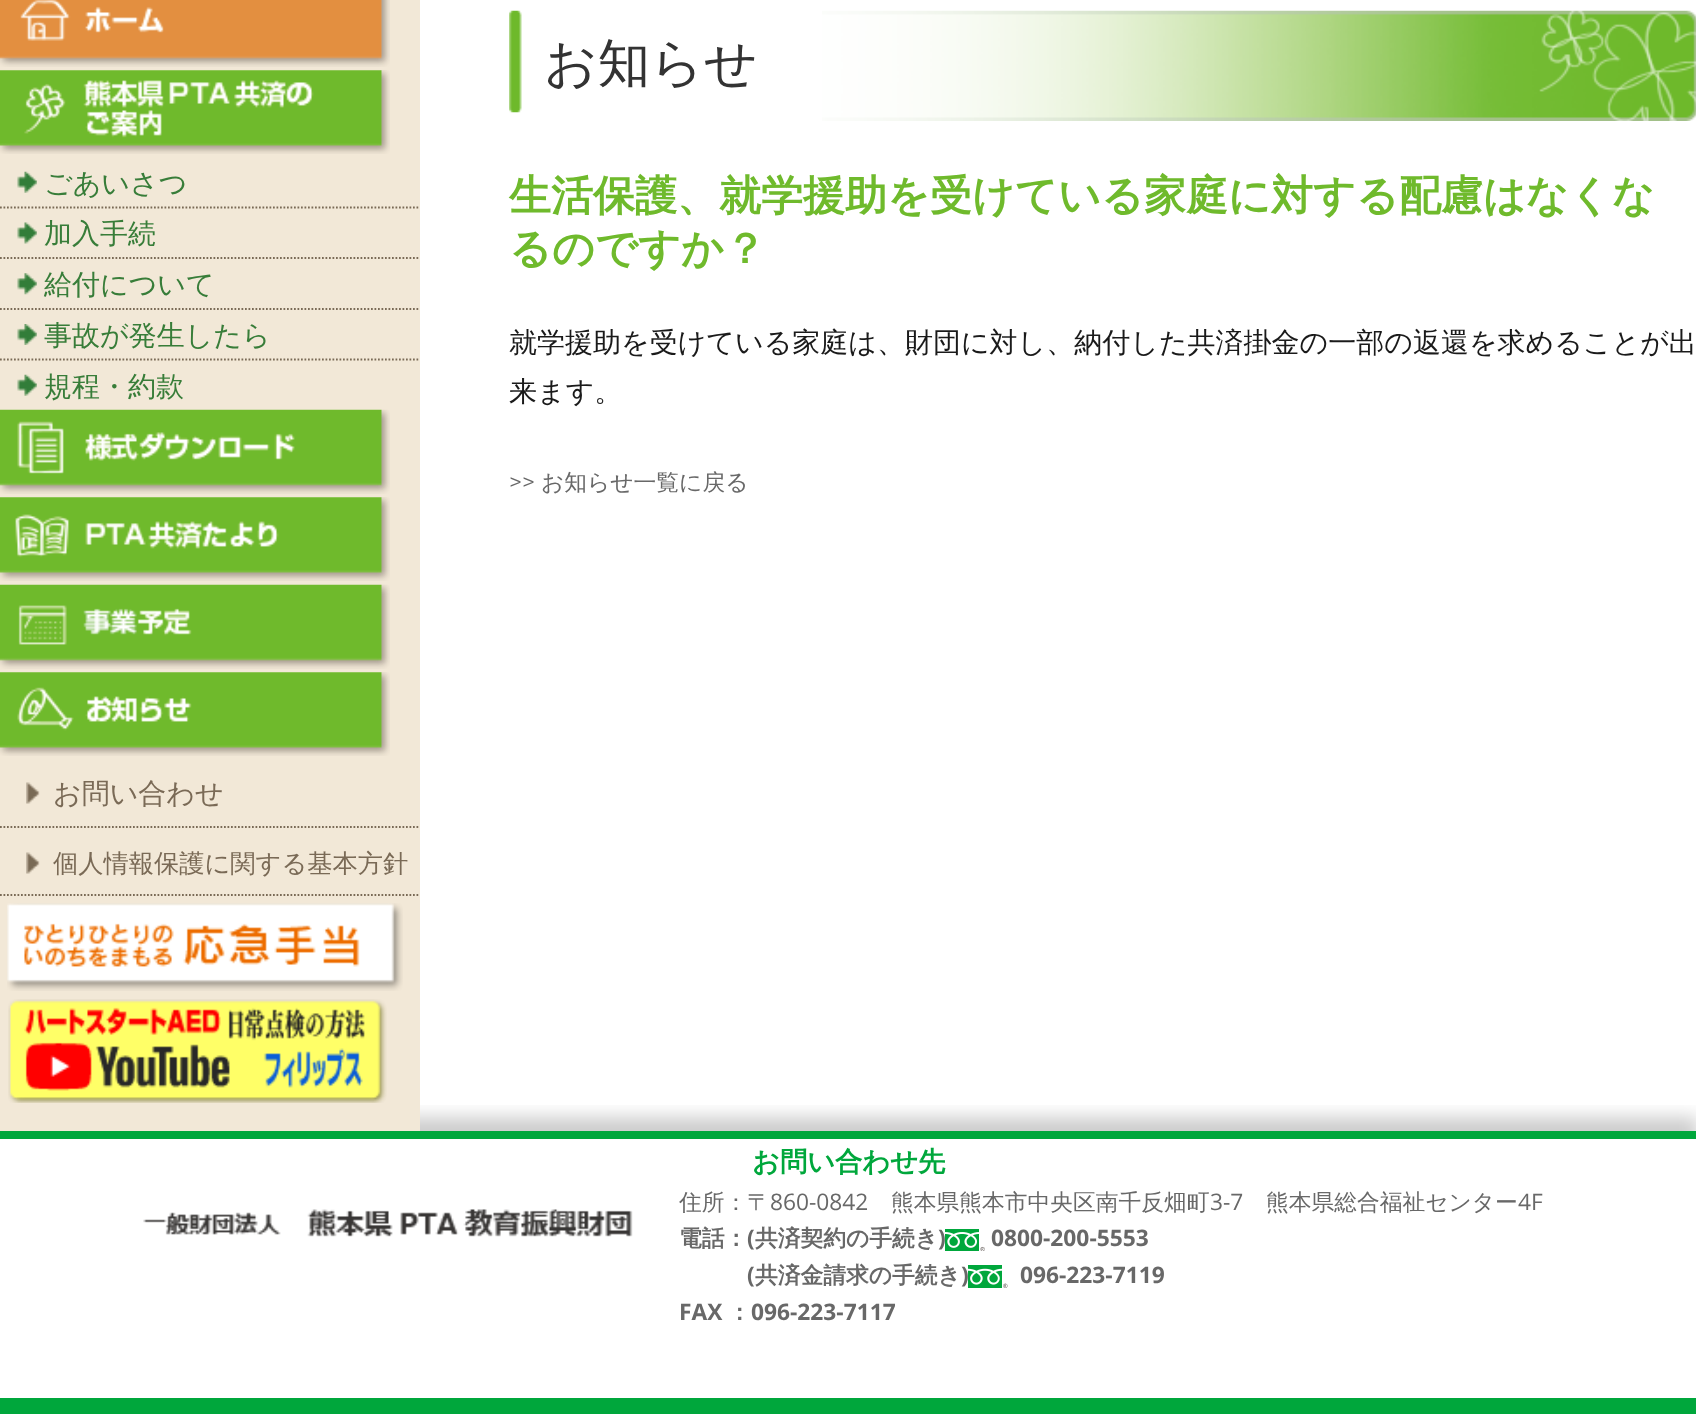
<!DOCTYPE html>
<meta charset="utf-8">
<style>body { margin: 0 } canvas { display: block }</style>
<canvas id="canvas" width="1696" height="1414"></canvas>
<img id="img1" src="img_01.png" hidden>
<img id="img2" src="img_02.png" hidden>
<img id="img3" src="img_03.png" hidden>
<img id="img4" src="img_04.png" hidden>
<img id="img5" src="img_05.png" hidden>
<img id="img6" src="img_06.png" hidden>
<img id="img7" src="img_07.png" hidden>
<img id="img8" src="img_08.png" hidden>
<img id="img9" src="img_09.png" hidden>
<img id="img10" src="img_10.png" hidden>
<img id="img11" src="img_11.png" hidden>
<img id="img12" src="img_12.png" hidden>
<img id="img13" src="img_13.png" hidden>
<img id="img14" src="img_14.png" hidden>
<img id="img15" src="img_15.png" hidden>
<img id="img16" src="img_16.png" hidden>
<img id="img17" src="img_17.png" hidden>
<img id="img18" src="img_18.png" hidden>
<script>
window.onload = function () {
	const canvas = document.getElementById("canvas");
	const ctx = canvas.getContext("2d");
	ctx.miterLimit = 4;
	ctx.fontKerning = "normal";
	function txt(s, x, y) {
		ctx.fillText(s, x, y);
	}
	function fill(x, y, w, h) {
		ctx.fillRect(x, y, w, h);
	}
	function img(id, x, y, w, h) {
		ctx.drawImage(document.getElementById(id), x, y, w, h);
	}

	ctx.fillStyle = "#FFFFFF";
	fill(0, 0, 1696, 1414);
	ctx.save();
	ctx.beginPath();
	ctx.rect(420, 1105, 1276, 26);
	ctx.clip();
	ctx.fillStyle = "rgba(0, 0, 0, 0.2)";
	ctx.filter = "blur(9px)";
	ctx.beginPath();
	ctx.rect(0, 1117, 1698, 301);
	ctx.fill();
	ctx.filter = "none";
	ctx.restore();
	ctx.fillStyle = "#F2E8D7";
	fill(0, 0, 420, 1131);
	img("img1", 0, 0, 390, 67);
	img("img2", 0, 70, 390, 84);
	ctx.beginPath();
	ctx.moveTo(0, 207.5);
	ctx.lineTo(420, 207.5);
	ctx.strokeStyle = "#7A6A56";
	ctx.lineWidth = 1.8;
	ctx.setLineDash([1.75, 1.75]);
	ctx.stroke();
	img("img3", 17, 171, 20, 22);
	ctx.beginPath();
	ctx.moveTo(0, 258);
	ctx.lineTo(420, 258);
	ctx.stroke();
	img("img4", 17, 222, 20, 22);
	ctx.beginPath();
	ctx.moveTo(0, 309);
	ctx.lineTo(420, 309);
	ctx.stroke();
	img("img5", 17, 273, 20, 22);
	ctx.beginPath();
	ctx.moveTo(0, 359.5);
	ctx.lineTo(420, 359.5);
	ctx.stroke();
	img("img6", 17, 324, 20, 21);
	img("img3", 17, 374, 20, 22);
	img("img7", 0, 409, 390, 85);
	img("img8", 0, 497, 390, 84);
	img("img9", 0, 584, 390, 85);
	img("img10", 0, 672, 390, 84);
	ctx.beginPath();
	ctx.moveTo(0, 827);
	ctx.lineTo(420, 827);
	ctx.stroke();
	img("img11", 26, 782, 14, 22);
	ctx.beginPath();
	ctx.moveTo(0, 895);
	ctx.lineTo(420, 895);
	ctx.stroke();
	img("img11", 26, 852, 14, 22);
	img("img12", 7, 903, 396, 88);
	img("img13", 8, 999, 379, 104);
	img("img14", 822, 10, 874, 111);
	img("img15", 509, 10, 13, 103);
	ctx.fillStyle = "#00A73C";
	fill(0, 1131, 1696, 8);
	img("img16", 143, 1209, 490, 28);
	img("img17", 945, 1229, 40, 22);
	img("img18", 968, 1265, 40, 23);
	fill(0, 1398, 1696, 16);
	ctx.font = "500 28px WenQuanYi Zen Hei";
	ctx.fillStyle = "#387D39";
	txt("ごあいさつ", 44, 193);
	txt("加入手続", 44, 243);
	txt("給付について", 44, 294);
	txt("事故が発生したら", 44, 345);
	txt("規程・約款", 44, 396);
	ctx.fillStyle = "#7A6A56";
	txt("お問い合わせ", 53, 803);
	ctx.font = "500 25.25px WenQuanYi Zen Hei";
	txt("個人情報保護に関する基本方針", 53, 872);
	ctx.font = "500 52.5px WenQuanYi Zen Hei";
	ctx.fillStyle = "#333333";
	txt("お知らせ", 544, 81);
	ctx.font = "bold 42px WenQuanYi Zen Hei";
	ctx.fillStyle = "#6FBA2C";
	txt("生活保護、就学援助を受けている家庭に対する配慮はなくな", 509, 210);
	txt("るのですか？", 509, 263);
	ctx.font = "500 28px WenQuanYi Zen Hei";
	ctx.fillStyle = "#1A1A1A";
	txt("就学援助を受けている家庭は、財団に対し、納付した共済掛金の一部の返還を求めることが出", 509, 352);
	txt("来ます。", 509, 401);
	ctx.font = "22.75px Montserrat";
	ctx.fillStyle = "#686868";
	txt(">>", 509, 490);
	ctx.font = "500 22.75px WenQuanYi Zen Hei";
	txt("お知らせ一覧に戻る", 541, 490);
	ctx.font = "bold 27.25px WenQuanYi Zen Hei";
	ctx.fillStyle = "#00A73C";
	txt("お問い合わせ先", 752, 1171);
	ctx.font = "500 22.75px WenQuanYi Zen Hei";
	ctx.fillStyle = "#686868";
	txt("住所：〒", 679, 1210);
	ctx.font = "22.75px Open Sans";
	txt("860-0842", 770, 1210);
	ctx.font = "500 22.75px WenQuanYi Zen Hei";
	txt("熊本県熊本市中央区南千反畑町", 891, 1210);
	ctx.font = "22.75px Open Sans";
	txt("3-7", 1210, 1210);
	ctx.font = "500 22.75px WenQuanYi Zen Hei";
	txt("熊本県総合福祉センター", 1266, 1210);
	ctx.font = "22.75px Open Sans";
	txt("4F", 1518, 1210);
	ctx.font = "bold 22.75px WenQuanYi Zen Hei";
	txt("電話：", 679, 1246);
	ctx.font = "bold 22.75px Open Sans";
	txt("(", 747, 1246);
	ctx.font = "bold 22.75px WenQuanYi Zen Hei";
	txt("共済契約の手続き", 755, 1246);
	ctx.font = "bold 22.75px Open Sans";
	txt(")", 938, 1246);
	txt("0800-200-5553", 991, 1246);
	txt("(", 747, 1283);
	ctx.font = "bold 22.75px WenQuanYi Zen Hei";
	txt("共済金請求の手続き", 755, 1283);
	ctx.font = "bold 22.75px Open Sans";
	txt(")", 961, 1283);
	txt("096-223-7119", 1020, 1283);
	txt("FAX", 679, 1320);
	ctx.font = "bold 22.75px WenQuanYi Zen Hei";
	txt("：", 728, 1320);
	ctx.font = "bold 22.75px Open Sans";
	txt("096-223-7117", 751, 1320);
};
</script>
